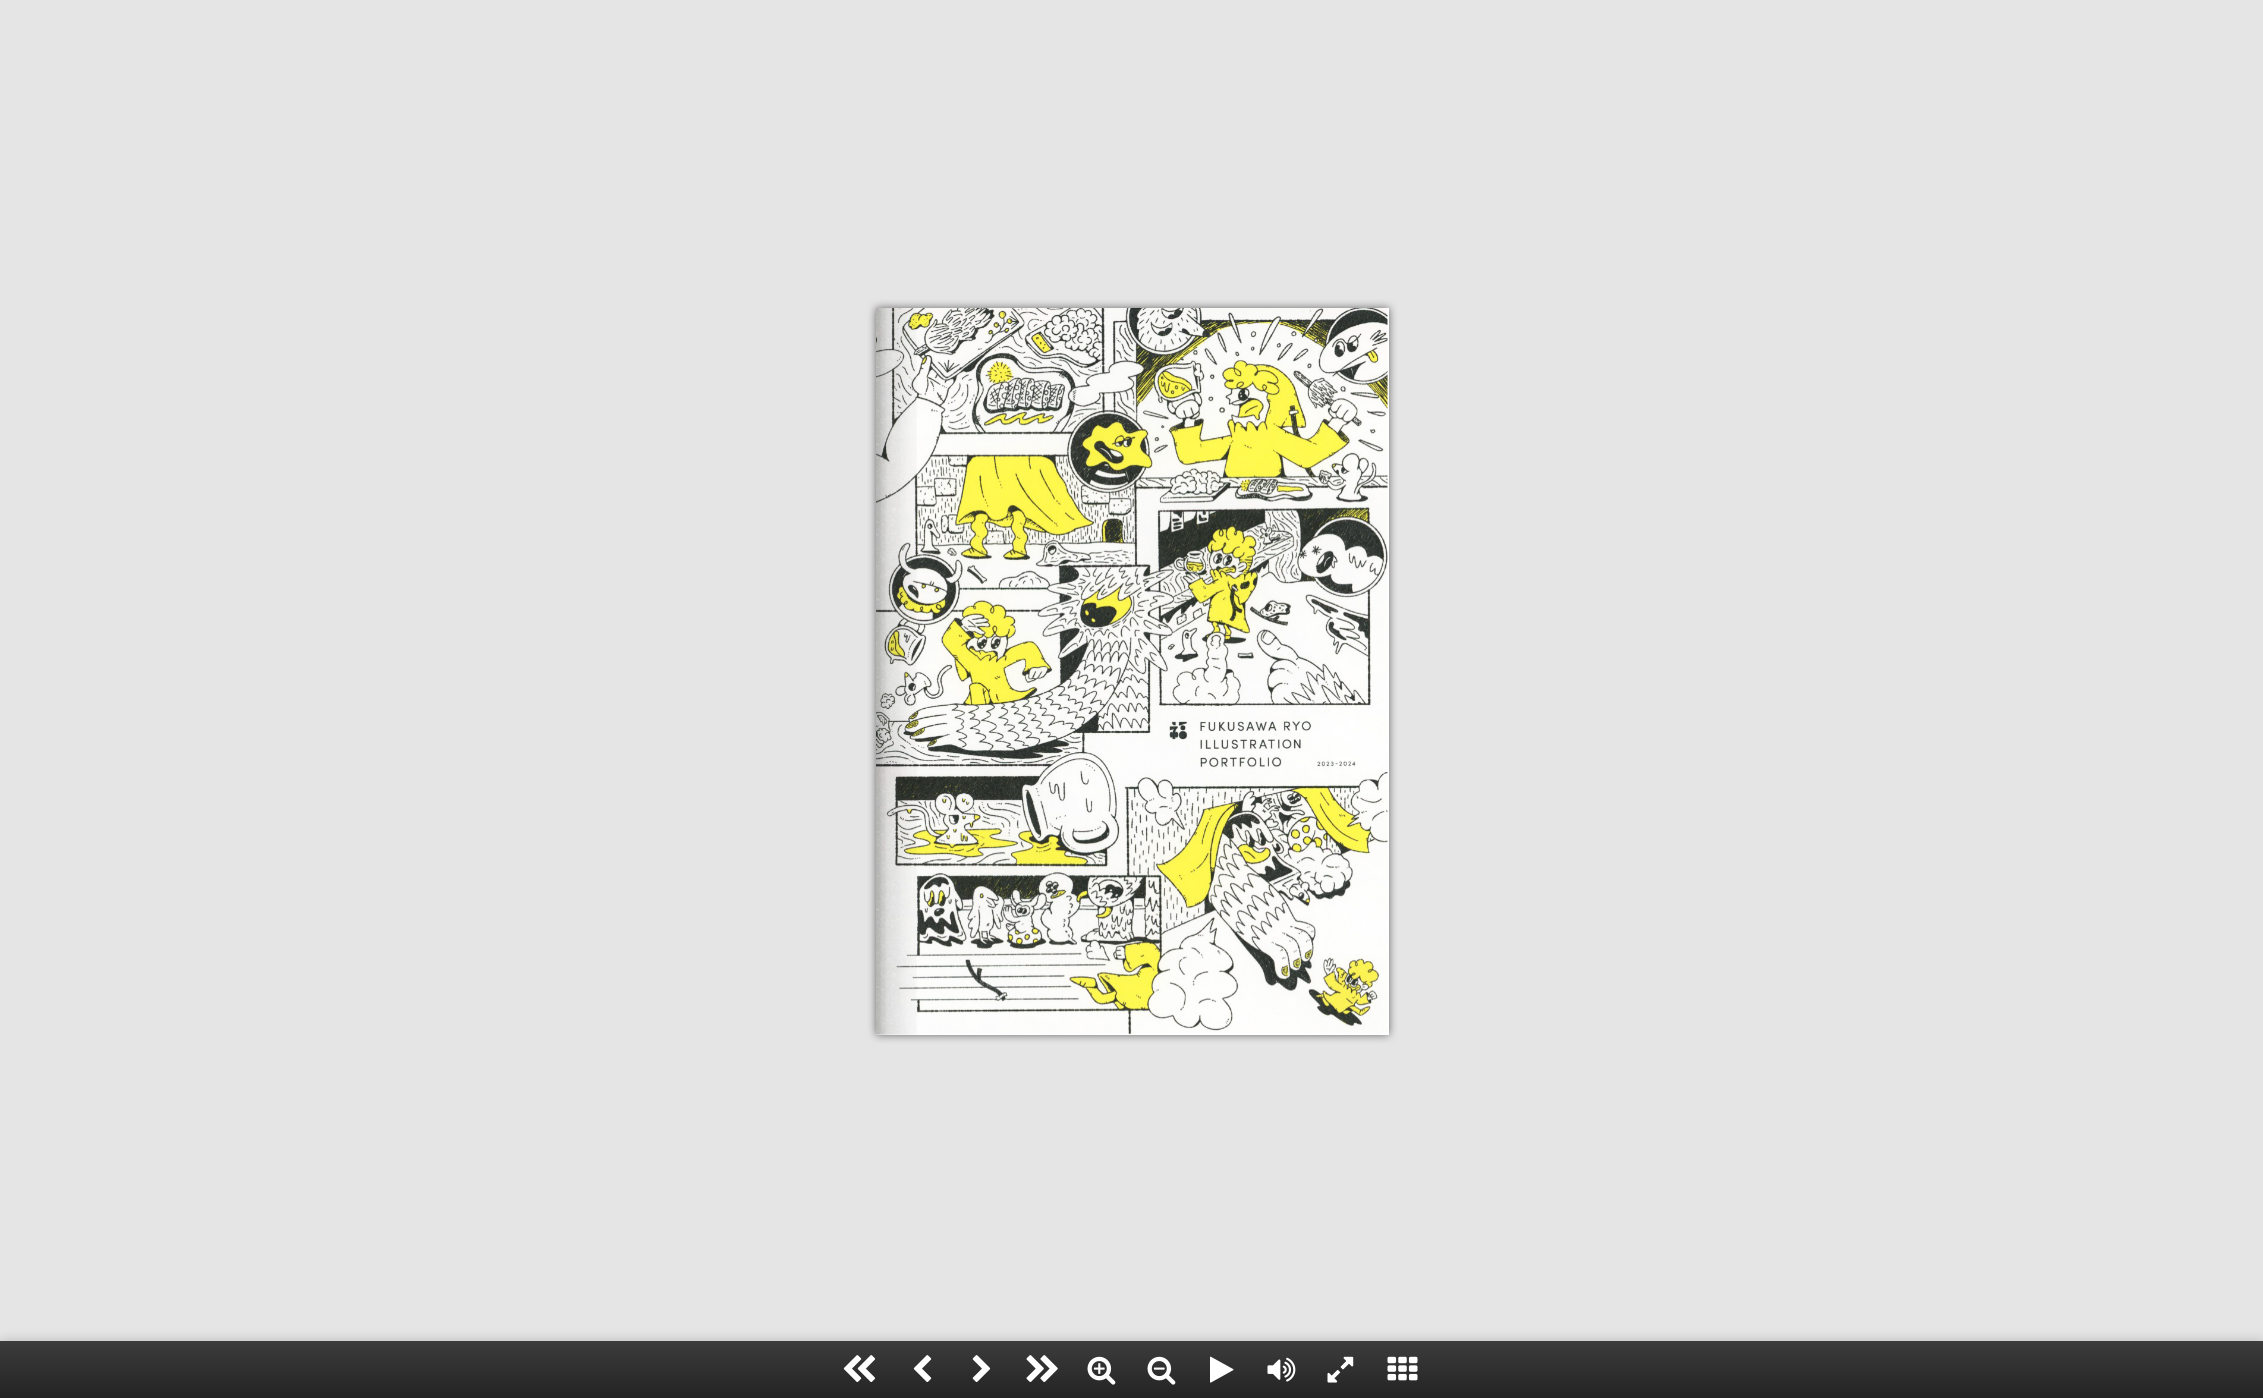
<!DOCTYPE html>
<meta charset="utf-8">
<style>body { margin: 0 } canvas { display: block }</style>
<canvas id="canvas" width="2263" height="1398"></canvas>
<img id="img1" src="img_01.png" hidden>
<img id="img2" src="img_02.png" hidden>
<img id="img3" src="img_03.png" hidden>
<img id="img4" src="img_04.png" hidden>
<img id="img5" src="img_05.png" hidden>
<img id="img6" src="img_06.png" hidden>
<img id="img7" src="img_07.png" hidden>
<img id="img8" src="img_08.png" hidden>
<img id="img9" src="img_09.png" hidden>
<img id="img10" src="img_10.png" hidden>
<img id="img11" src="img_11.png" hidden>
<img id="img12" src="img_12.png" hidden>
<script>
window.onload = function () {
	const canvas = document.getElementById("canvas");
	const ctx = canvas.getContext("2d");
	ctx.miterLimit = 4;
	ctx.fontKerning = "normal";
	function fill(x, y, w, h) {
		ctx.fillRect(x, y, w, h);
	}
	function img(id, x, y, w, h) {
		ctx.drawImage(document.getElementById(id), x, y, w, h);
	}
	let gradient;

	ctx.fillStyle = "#E5E5E5";
	fill(0, 0, 2263, 1398);
	ctx.fillStyle = "#666666";
	ctx.filter = "blur(4.5px)";
	ctx.beginPath();
	ctx.rect(876, 308, 513, 727);
	ctx.fill();
	ctx.filter = "none";
	ctx.fillStyle = "#FFFFFF";
	fill(876, 308, 513, 727);
	img("img1", 876, 308, 512, 726);
	img("img2", 876, 308, 41, 727);
	ctx.fillStyle = "rgba(0, 0, 0, 0.2)";
	ctx.filter = "blur(6px)";
	ctx.beginPath();
	ctx.rect(0, 1341, 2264, 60);
	ctx.fill();
	ctx.filter = "none";
	gradient = ctx.createLinearGradient(1132, 1341, 1132, 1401);
	gradient.addColorStop(0, "#3C3C3C");
	gradient.addColorStop(1, "#222222");
	ctx.fillStyle = gradient;
	fill(0, 1341, 2263, 57);
	img("img3", 843, 1355, 33, 27);
	img("img4", 913, 1355, 19, 27);
	img("img5", 972, 1355, 19, 27);
	img("img6", 1026, 1355, 32, 27);
	img("img7", 1087, 1356, 29, 29);
	img("img8", 1147, 1356, 29, 29);
	img("img9", 1210, 1356, 24, 27);
	img("img10", 1267, 1357, 29, 25);
	img("img11", 1327, 1356, 27, 27);
	img("img12", 1387, 1356, 31, 25);
};
</script>
